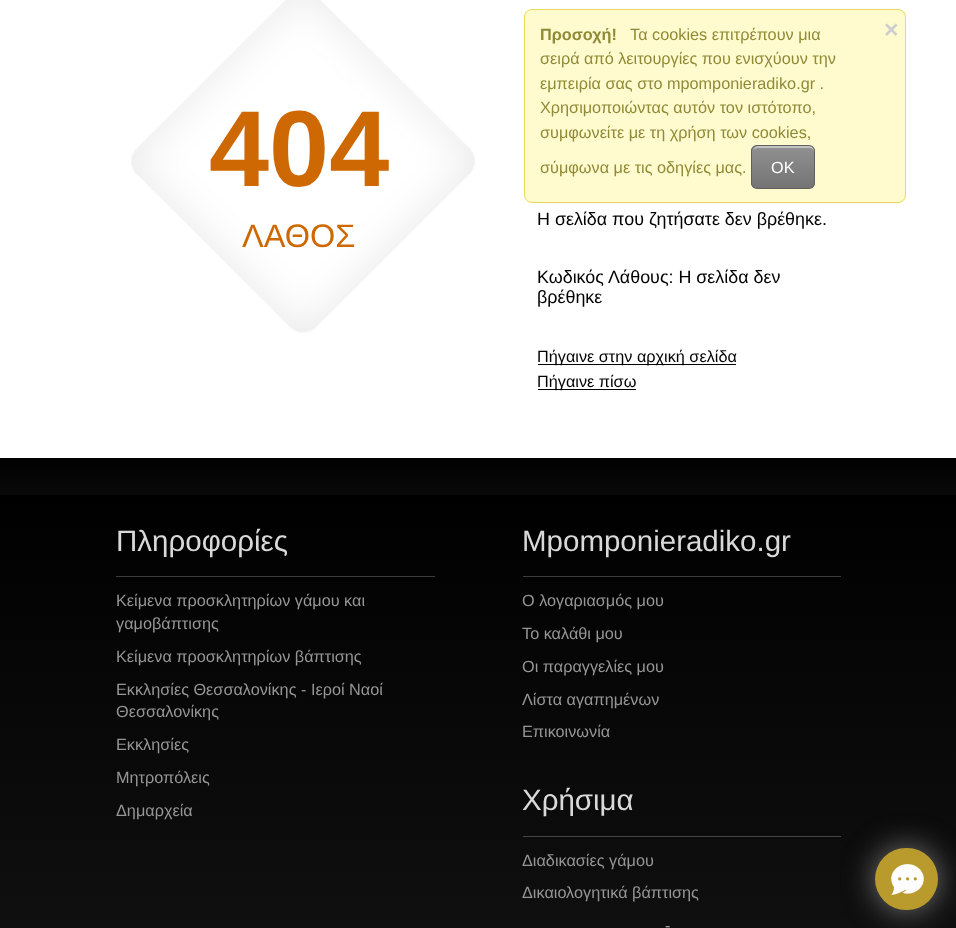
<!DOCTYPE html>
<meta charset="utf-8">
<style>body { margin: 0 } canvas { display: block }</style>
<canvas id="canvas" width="956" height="928"></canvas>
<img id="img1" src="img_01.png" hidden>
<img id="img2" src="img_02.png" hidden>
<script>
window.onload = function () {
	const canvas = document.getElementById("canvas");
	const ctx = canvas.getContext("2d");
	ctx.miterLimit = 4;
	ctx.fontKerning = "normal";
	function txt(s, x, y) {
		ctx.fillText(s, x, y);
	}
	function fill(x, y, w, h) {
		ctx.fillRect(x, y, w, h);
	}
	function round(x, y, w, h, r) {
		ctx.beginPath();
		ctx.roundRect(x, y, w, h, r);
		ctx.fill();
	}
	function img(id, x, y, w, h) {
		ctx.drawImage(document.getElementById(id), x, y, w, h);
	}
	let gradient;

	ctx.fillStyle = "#FFFFFF";
	fill(0, 0, 956, 928);
	ctx.fillStyle = "rgba(255, 251, 204, 0.96)";
	round(524, 9, 382, 194, 8);
	ctx.beginPath();
	ctx.roundRect(524.5, 9.5, 381, 193, 7.5);
	ctx.strokeStyle = "rgba(230, 219, 85, 0.96)";
	ctx.stroke();
	ctx.save();
	ctx.beginPath();
	ctx.roundRect(751, 145, 64, 44, 6);
	ctx.clip();
	gradient = ctx.createLinearGradient(783, 146, 783, 188);
	gradient.addColorStop(0, "#919191");
	gradient.addColorStop(1, "#747474");
	ctx.fillStyle = gradient;
	fill(751, 146, 64, 42);
	ctx.restore();
	ctx.fillStyle = "#C2C2C2";
	ctx.beginPath();
	ctx.moveTo(758, 148);
	ctx.lineTo(809, 148);
	ctx.bezierCurveTo(812, 148, 814, 150, 814, 152);
	ctx.lineTo(814, 151);
	ctx.bezierCurveTo(814, 148, 812, 146, 809, 146);
	ctx.lineTo(758, 146);
	ctx.bezierCurveTo(756, 146, 754, 148, 753, 150);
	ctx.bezierCurveTo(754, 149, 756, 148, 758, 148);
	ctx.closePath();
	ctx.fill();
	ctx.beginPath();
	ctx.roundRect(751.5, 145.5, 63, 43, 5.5);
	ctx.strokeStyle = "#606060";
	ctx.stroke();
	img("img1", 131, 0, 344, 333);
	ctx.fillStyle = "#000000";
	fill(538, 364, 198, 1);
	fill(538, 389, 98, 1);
	gradient = ctx.createLinearGradient(478, 457, 478, 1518);
	gradient.addColorStop(0, "#000000");
	gradient.addColorStop(1, "#F3F3F3");
	ctx.fillStyle = gradient;
	fill(0, 458, 956, 37);
	gradient = ctx.createLinearGradient(478, 495, 478, 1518);
	gradient.addColorStop(0, "#000000");
	gradient.addColorStop(1, "#242424");
	ctx.fillStyle = gradient;
	fill(0, 495, 956, 433);
	ctx.fillStyle = "#3D3D3D";
	fill(116, 576, 319, 1);
	fill(523, 576, 318, 1);
	ctx.fillStyle = "#464646";
	fill(523, 836, 318, 1);
	ctx.fillStyle = "#7A7A7A";
	ctx.filter = "blur(15.5px)";
	ctx.beginPath();
	ctx.roundRect(875, 848, 63, 62, 31);
	ctx.fill();
	ctx.filter = "none";
	ctx.fillStyle = "#B89A2D";
	round(875, 848, 63, 62, 31);
	img("img2", 891, 864, 33, 31);
	ctx.font = "bold 16.25px Liberation Sans";
	ctx.fillStyle = "#908A37";
	txt("Προσοχή!", 540, 40);
	ctx.font = "16.25px Liberation Sans";
	txt("Τα cookies επιτρέπουν μια", 630, 40);
	ctx.font = "bold 25px Liberation Sans";
	ctx.fillStyle = "#CECECE";
	txt("×", 884, 38);
	ctx.font = "16.25px Liberation Sans";
	ctx.fillStyle = "#908A37";
	txt("σειρά από λειτουργίες που ενισχύουν την", 540, 64);
	txt("εμπειρία σας στο mpomponieradiko.gr .", 540, 89);
	txt("Χρησιμοποιώντας αυτόν τον ιστότοπο,", 540, 113);
	txt("συμφωνείτε με τη χρήση των cookies,", 540, 138);
	txt("σύμφωνα με τις οδηγίες μας.", 540, 173);
	ctx.fillStyle = "#FFFFFF";
	txt("OK", 771, 173);
	ctx.font = "bold 108px Liberation Sans";
	ctx.fillStyle = "#CD6803";
	txt("404", 209, 186);
	ctx.font = "32.5px Liberation Sans";
	txt("ΛΑΘΟΣ", 242, 247);
	ctx.font = "17.9px Liberation Sans";
	ctx.fillStyle = "#000000";
	txt("Η σελίδα που ζητήσατε δεν βρέθηκε.", 537, 225);
	txt("Κωδικός Λάθους: Η σελίδα δεν", 537, 283);
	txt("βρέθηκε", 537, 303);
	ctx.font = "16.25px Liberation Sans";
	txt("Πήγαινε στην αρχική σελίδα", 537, 362);
	txt("Πήγαινε πίσω", 537, 387);
	ctx.font = "29.5px Liberation Sans";
	ctx.fillStyle = "#D9D9D9";
	txt("Πληροφορίες", 116, 551);
	ctx.font = "16.25px Liberation Sans";
	ctx.fillStyle = "#969696";
	txt("Κείμενα προσκλητηρίων γάμου και", 116, 606);
	txt("γαμοβάπτισης", 116, 629);
	txt("Κείμενα προσκλητηρίων βάπτισης", 116, 662);
	txt("Εκκλησίες Θεσσαλονίκης - Ιεροί Ναοί", 116, 695);
	txt("Θεσσαλονίκης", 116, 717);
	txt("Εκκλησίες", 116, 750);
	txt("Μητροπόλεις", 116, 783);
	txt("Δημαρχεία", 116, 816);
	ctx.font = "29.5px Liberation Sans";
	ctx.fillStyle = "#D9D9D9";
	txt("Mpomponieradiko.gr", 522, 551);
	ctx.font = "16.25px Liberation Sans";
	ctx.fillStyle = "#969696";
	txt("Ο λογαριασμός μου", 522, 606);
	txt("Το καλάθι μου", 522, 639);
	txt("Οι παραγγελίες μου", 522, 672);
	txt("Λίστα αγαπημένων", 522, 705);
	txt("Επικοινωνία", 522, 737);
	ctx.font = "29.5px Liberation Sans";
	ctx.fillStyle = "#D9D9D9";
	txt("Χρήσιμα", 522, 810);
	ctx.font = "16.25px Liberation Sans";
	ctx.fillStyle = "#969696";
	txt("Διαδικασίες γάμου", 522, 866);
	txt("Δικαιολογητικά βάπτισης", 522, 898);
	ctx.fillStyle = "#A5A5A5";
	txt("-", 665, 931);
};
</script>
